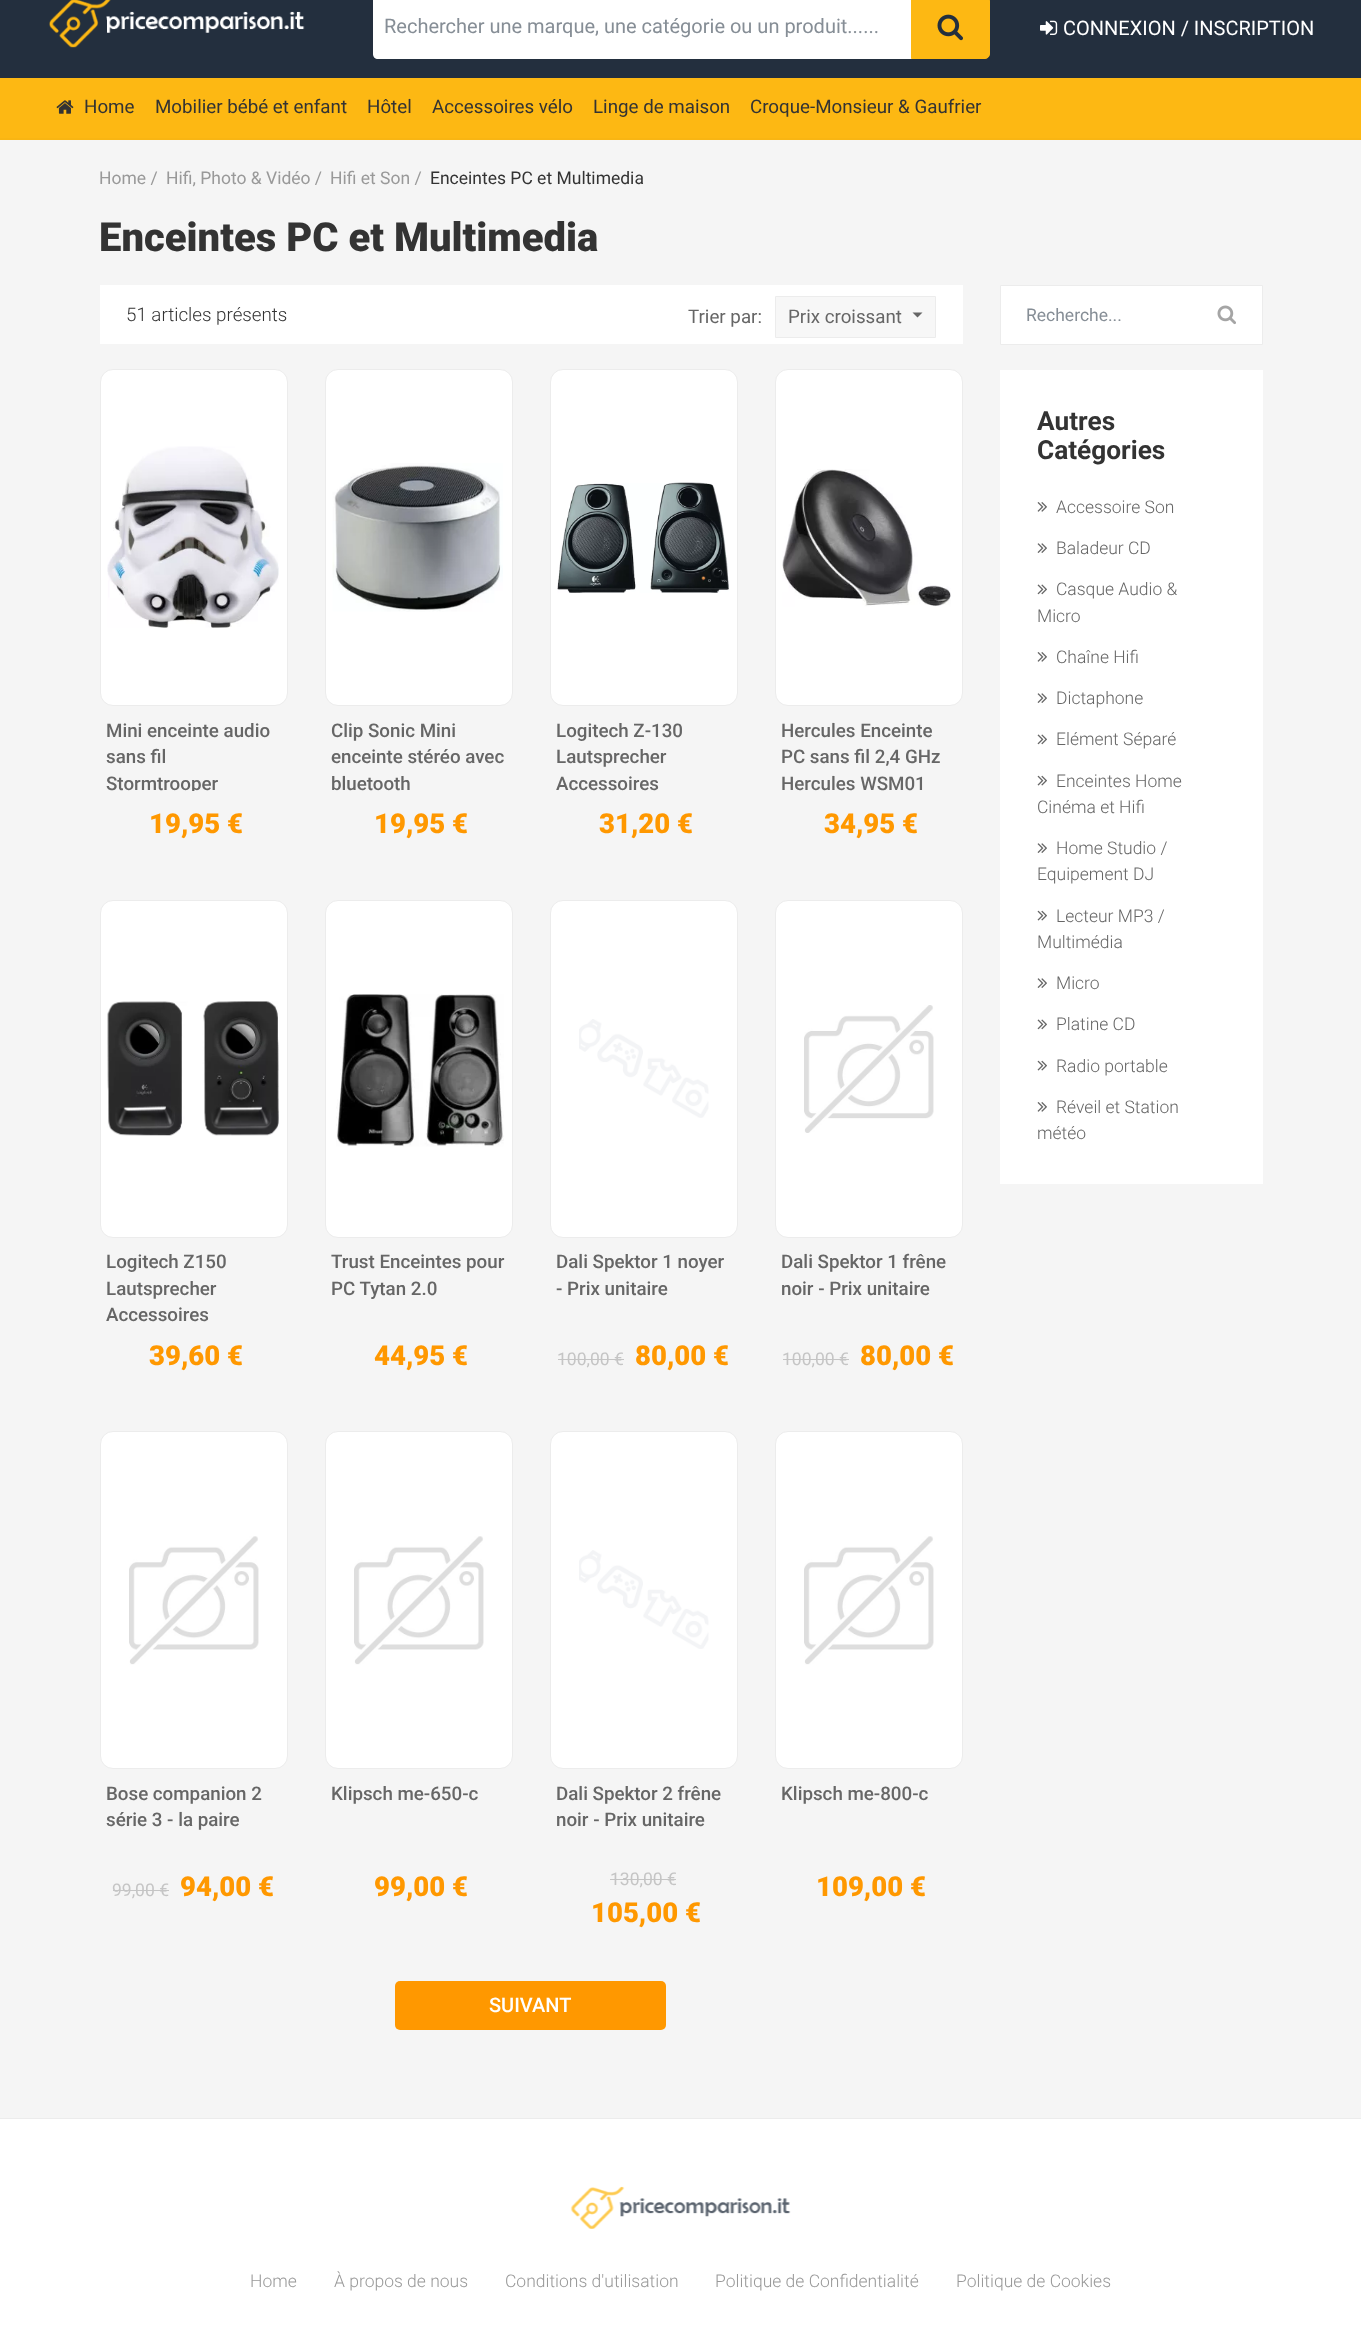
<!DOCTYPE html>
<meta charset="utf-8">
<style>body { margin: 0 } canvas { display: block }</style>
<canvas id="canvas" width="1361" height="2340"></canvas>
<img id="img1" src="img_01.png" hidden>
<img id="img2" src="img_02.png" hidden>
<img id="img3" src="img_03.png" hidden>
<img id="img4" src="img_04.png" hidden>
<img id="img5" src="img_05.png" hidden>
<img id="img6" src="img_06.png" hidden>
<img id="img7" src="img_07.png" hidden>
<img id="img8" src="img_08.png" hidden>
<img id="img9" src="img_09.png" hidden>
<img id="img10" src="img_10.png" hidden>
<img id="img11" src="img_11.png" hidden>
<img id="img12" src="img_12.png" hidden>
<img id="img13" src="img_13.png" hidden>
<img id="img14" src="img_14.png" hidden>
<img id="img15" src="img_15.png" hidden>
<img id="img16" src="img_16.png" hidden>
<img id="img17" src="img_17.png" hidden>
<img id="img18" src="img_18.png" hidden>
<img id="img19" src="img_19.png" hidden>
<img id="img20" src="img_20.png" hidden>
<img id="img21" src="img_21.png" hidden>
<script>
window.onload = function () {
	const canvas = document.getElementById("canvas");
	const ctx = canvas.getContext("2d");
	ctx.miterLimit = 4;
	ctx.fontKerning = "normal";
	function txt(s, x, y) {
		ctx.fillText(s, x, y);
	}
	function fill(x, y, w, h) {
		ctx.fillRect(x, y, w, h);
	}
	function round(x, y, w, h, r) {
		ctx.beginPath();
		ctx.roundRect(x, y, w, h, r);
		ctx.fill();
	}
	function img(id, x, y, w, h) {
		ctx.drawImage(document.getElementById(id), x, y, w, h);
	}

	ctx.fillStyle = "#FFFFFF";
	fill(0, 0, 1361, 2340);
	ctx.fillStyle = "#232F3E";
	fill(0, 0, 1361, 78);
	img("img1", 49, 0, 256, 48);
	ctx.fillStyle = "#FFFFFF";
	ctx.beginPath();
	ctx.moveTo(378, -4);
	ctx.lineTo(913, -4);
	ctx.lineTo(913, 59);
	ctx.lineTo(378, 59);
	ctx.bezierCurveTo(375, 59, 373, 57, 373, 54);
	ctx.lineTo(373, 1);
	ctx.bezierCurveTo(373, -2, 375, -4, 378, -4);
	ctx.closePath();
	ctx.fill();
	ctx.fillStyle = "#FDB813";
	ctx.beginPath();
	ctx.moveTo(911.5, -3.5);
	ctx.lineTo(985, -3.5);
	ctx.bezierCurveTo(987.5, -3.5, 989.5, -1.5, 989.5, 1);
	ctx.lineTo(989.5, 54);
	ctx.bezierCurveTo(989.5, 56.5, 987.5, 58.5, 985, 58.5);
	ctx.lineTo(911.5, 58.5);
	ctx.closePath();
	ctx.fill();
	ctx.strokeStyle = "#FDB813";
	ctx.stroke();
	img("img2", 937, 14, 26, 27);
	img("img3", 1040, 20, 18, 15);
	fill(0, 78, 1361, 60);
	ctx.fillStyle = "#F9B513";
	fill(0, 138, 1361, 2);
	img("img4", 56, 100, 18, 14);
	ctx.fillStyle = "#F5F5F5";
	fill(0, 140, 1361, 1978);
	ctx.fillStyle = "#FFFFFF";
	fill(100, 285, 863, 59);
	ctx.fillStyle = "#F7F7F7";
	ctx.beginPath();
	ctx.rect(775.5, 296.5, 160, 41);
	ctx.fill();
	ctx.strokeStyle = "#ECECEC";
	ctx.stroke();
	ctx.fillStyle = "#666666";
	ctx.beginPath();
	ctx.moveTo(912.5, 312.5);
	ctx.lineTo(922.5, 312.5);
	ctx.lineTo(917.5, 317.5);
	ctx.closePath();
	ctx.fill();
	ctx.fillStyle = "#FFFFFF";
	ctx.beginPath();
	ctx.roundRect(100.5, 369.5, 187, 336, 12.5);
	ctx.fill();
	ctx.stroke();
	img("img5", 107, 446, 172, 182);
	ctx.beginPath();
	ctx.roundRect(325.5, 369.5, 187, 336, 12.5);
	ctx.fill();
	ctx.stroke();
	img("img6", 332, 463, 171, 149);
	ctx.beginPath();
	ctx.roundRect(550.5, 369.5, 187, 336, 12.5);
	ctx.fill();
	ctx.stroke();
	img("img7", 557, 482, 172, 111);
	ctx.beginPath();
	ctx.roundRect(775.5, 369.5, 187, 336, 12.5);
	ctx.fill();
	ctx.stroke();
	img("img8", 782, 469, 169, 138);
	ctx.beginPath();
	ctx.roundRect(100.5, 900.5, 187, 337, 12.5);
	ctx.fill();
	ctx.stroke();
	img("img9", 107, 1001, 172, 135);
	ctx.beginPath();
	ctx.roundRect(325.5, 900.5, 187, 337, 12.5);
	ctx.fill();
	ctx.stroke();
	img("img10", 336, 994, 168, 153);
	ctx.beginPath();
	ctx.roundRect(550.5, 900.5, 187, 337, 12.5);
	ctx.fill();
	ctx.stroke();
	img("img11", 579, 1019, 130, 99);
	ctx.fillStyle = "#C5C5C5";
	fill(558, 1359, 66, 1);
	ctx.fillStyle = "#FFFFFF";
	ctx.beginPath();
	ctx.roundRect(775.5, 900.5, 187, 337, 12.5);
	ctx.fill();
	ctx.stroke();
	img("img12", 804, 1005, 130, 128);
	ctx.fillStyle = "#C5C5C5";
	fill(783, 1359, 66, 1);
	ctx.fillStyle = "#FFFFFF";
	ctx.beginPath();
	ctx.roundRect(100.5, 1431.5, 187, 337, 12.5);
	ctx.fill();
	ctx.stroke();
	img("img13", 129, 1536, 130, 129);
	ctx.fillStyle = "#C5C5C5";
	fill(113, 1890, 56, 1);
	ctx.fillStyle = "#FFFFFF";
	ctx.beginPath();
	ctx.roundRect(325.5, 1431.5, 187, 337, 12.5);
	ctx.fill();
	ctx.stroke();
	img("img14", 354, 1536, 130, 129);
	ctx.beginPath();
	ctx.roundRect(550.5, 1431.5, 187, 337, 12.5);
	ctx.fill();
	ctx.stroke();
	img("img15", 579, 1550, 130, 99);
	ctx.fillStyle = "#C5C5C5";
	fill(610, 1879, 66, 1);
	ctx.fillStyle = "#FFFFFF";
	ctx.beginPath();
	ctx.roundRect(775.5, 1431.5, 187, 337, 12.5);
	ctx.fill();
	ctx.stroke();
	img("img13", 804, 1536, 130, 129);
	ctx.fillStyle = "#FF9800";
	round(395, 1981, 271, 49, 5);
	ctx.fillStyle = "#FFFFFF";
	ctx.beginPath();
	ctx.rect(1000.5, 285.5, 262, 59);
	ctx.fill();
	ctx.stroke();
	img("img16", 1217, 305, 19, 20);
	fill(1000, 370, 263, 814);
	img("img17", 1037, 502, 10, 10);
	img("img18", 1037, 543, 10, 10);
	img("img19", 1037, 584, 10, 11);
	img("img17", 1037, 652, 10, 10);
	img("img18", 1037, 693, 10, 10);
	img("img19", 1037, 734, 10, 11);
	img("img20", 1037, 775, 10, 11);
	img("img18", 1037, 843, 10, 10);
	img("img20", 1037, 910, 10, 11);
	img("img18", 1037, 978, 10, 10);
	img("img19", 1037, 1019, 10, 11);
	img("img20", 1037, 1060, 10, 11);
	img("img17", 1037, 1102, 10, 10);
	ctx.fillStyle = "#ECECEC";
	fill(0, 2118, 1361, 1);
	img("img21", 570, 2186, 221, 43);
	ctx.font = "20px Roboto";
	ctx.fillStyle = "#868E96";
	txt("Rechercher une marque, une catégorie ou un produit......", 384, 33);
	ctx.fillStyle = "#FFFFFF";
	txt("CONNEXION / INSCRIPTION", 1063, 35);
	ctx.font = "18.75px Roboto";
	ctx.fillStyle = "#333333";
	txt("Home", 84, 113);
	txt("Mobilier bébé et enfant", 155, 113);
	txt("Hôtel", 367, 113);
	txt("Accessoires vélo", 432, 113);
	txt("Linge de maison", 593, 113);
	txt("Croque-Monsieur & Gaufrier", 750, 113);
	ctx.font = "17.5px Roboto";
	ctx.fillStyle = "#999999";
	txt("Home /", 99, 184);
	txt("Hifi, Photo & Vidéo /", 166, 184);
	txt("Hifi et Son /", 330, 184);
	ctx.fillStyle = "#333333";
	txt("Enceintes PC et Multimedia", 430, 184);
	ctx.font = "900 40px Roboto";
	txt("Enceintes PC et Multimedia", 99, 251);
	ctx.font = "300 18.75px Roboto";
	txt("51 articles présents", 126, 321);
	ctx.font = "18.75px Roboto";
	ctx.fillStyle = "#666666";
	txt("Trier par:", 688, 323);
	txt("Prix croissant", 788, 323);
	ctx.font = "500 18.75px Roboto";
	txt("Mini enceinte audio", 106, 737);
	txt("sans fil", 106, 763);
	ctx.save();
	ctx.beginPath();
	ctx.rect(106, 719, 175, 72);
	ctx.clip();
	txt("Stormtrooper", 106, 790);
	ctx.restore();
	ctx.font = "900 27.5px Roboto";
	ctx.fillStyle = "#FF9800";
	txt("19,95 €", 149, 833);
	ctx.font = "500 18.75px Roboto";
	ctx.fillStyle = "#666666";
	txt("Clip Sonic Mini", 331, 737);
	txt("enceinte stéréo avec", 331, 763);
	txt("bluetooth", 331, 790);
	ctx.font = "900 27.5px Roboto";
	ctx.fillStyle = "#FF9800";
	txt("19,95 €", 374, 833);
	ctx.font = "500 18.75px Roboto";
	ctx.fillStyle = "#666666";
	txt("Logitech Z-130", 556, 737);
	txt("Lautsprecher", 556, 763);
	txt("Accessoires", 556, 790);
	ctx.font = "900 27.5px Roboto";
	ctx.fillStyle = "#FF9800";
	txt("31,20 €", 599, 833);
	ctx.font = "500 18.75px Roboto";
	ctx.fillStyle = "#666666";
	txt("Hercules Enceinte", 781, 737);
	txt("PC sans fil 2,4 GHz", 781, 763);
	txt("Hercules WSM01", 781, 790);
	ctx.font = "900 27.5px Roboto";
	ctx.fillStyle = "#FF9800";
	txt("34,95 €", 824, 833);
	ctx.font = "500 18.75px Roboto";
	ctx.fillStyle = "#666666";
	txt("Logitech Z150", 106, 1268);
	txt("Lautsprecher", 106, 1295);
	txt("Accessoires", 106, 1321);
	ctx.font = "900 27.5px Roboto";
	ctx.fillStyle = "#FF9800";
	txt("39,60 €", 149, 1365);
	ctx.font = "500 18.75px Roboto";
	ctx.fillStyle = "#666666";
	txt("Trust Enceintes pour", 331, 1268);
	txt("PC Tytan 2.0", 331, 1295);
	ctx.font = "900 27.5px Roboto";
	ctx.fillStyle = "#FF9800";
	txt("44,95 €", 374, 1365);
	ctx.font = "500 18.75px Roboto";
	ctx.fillStyle = "#666666";
	txt("Dali Spektor 1 noyer", 556, 1268);
	txt("- Prix unitaire", 556, 1295);
	ctx.font = "17.5px Roboto";
	ctx.fillStyle = "#C5C5C5";
	txt("100,00 €", 557, 1365);
	ctx.font = "900 27.5px Roboto";
	ctx.fillStyle = "#FF9800";
	txt("80,00 €", 635, 1365);
	ctx.font = "500 18.75px Roboto";
	ctx.fillStyle = "#666666";
	txt("Dali Spektor 1 frêne", 781, 1268);
	txt("noir - Prix unitaire", 781, 1295);
	ctx.font = "17.5px Roboto";
	ctx.fillStyle = "#C5C5C5";
	txt("100,00 €", 782, 1365);
	ctx.font = "900 27.5px Roboto";
	ctx.fillStyle = "#FF9800";
	txt("80,00 €", 860, 1365);
	ctx.font = "500 18.75px Roboto";
	ctx.fillStyle = "#666666";
	txt("Bose companion 2", 106, 1800);
	txt("série 3 - la paire", 106, 1826);
	ctx.font = "17.5px Roboto";
	ctx.fillStyle = "#C5C5C5";
	txt("99,00 €", 112, 1896);
	ctx.font = "900 27.5px Roboto";
	ctx.fillStyle = "#FF9800";
	txt("94,00 €", 180, 1896);
	ctx.font = "500 18.75px Roboto";
	ctx.fillStyle = "#666666";
	txt("Klipsch me-650-c", 331, 1800);
	ctx.font = "900 27.5px Roboto";
	ctx.fillStyle = "#FF9800";
	txt("99,00 €", 374, 1896);
	ctx.font = "500 18.75px Roboto";
	ctx.fillStyle = "#666666";
	txt("Dali Spektor 2 frêne", 556, 1800);
	txt("noir - Prix unitaire", 556, 1826);
	ctx.font = "17.5px Roboto";
	ctx.fillStyle = "#C5C5C5";
	txt("130,00 €", 610, 1885);
	ctx.font = "900 27.5px Roboto";
	ctx.fillStyle = "#FF9800";
	txt("105,00 €", 591, 1922);
	ctx.font = "500 18.75px Roboto";
	ctx.fillStyle = "#666666";
	txt("Klipsch me-800-c", 781, 1800);
	ctx.font = "900 27.5px Roboto";
	ctx.fillStyle = "#FF9800";
	txt("109,00 €", 816, 1896);
	ctx.font = "500 20px Roboto";
	ctx.fillStyle = "#FFFFFF";
	txt("SUIVANT", 489, 2012);
	ctx.font = "17.5px Roboto";
	ctx.fillStyle = "#868E96";
	txt("Recherche...", 1026, 321);
	ctx.font = "bold 26.25px Roboto";
	ctx.fillStyle = "#333333";
	txt("Autres", 1037, 430);
	txt("Catégories", 1037, 459);
	ctx.font = "300 17.5px Roboto";
	ctx.fillStyle = "#666666";
	txt("Accessoire Son", 1056, 513);
	txt("Baladeur CD", 1056, 554);
	txt("Casque Audio &", 1056, 595);
	txt("Micro", 1037, 622);
	txt("Chaîne Hifi", 1056, 663);
	txt("Dictaphone", 1056, 704);
	txt("Elément Séparé", 1056, 745);
	txt("Enceintes Home", 1056, 787);
	txt("Cinéma et Hifi", 1037, 813);
	txt("Home Studio /", 1056, 854);
	txt("Equipement DJ", 1037, 880);
	txt("Lecteur MP3 /", 1056, 922);
	txt("Multimédia", 1037, 948);
	txt("Micro", 1056, 989);
	txt("Platine CD", 1056, 1030);
	txt("Radio portable", 1056, 1072);
	txt("Réveil et Station", 1056, 1113);
	txt("météo", 1037, 1139);
	ctx.fillStyle = "#999999";
	txt("Home", 250, 2287);
	txt("À propos de nous", 334, 2287);
	txt("Conditions d'utilisation", 505, 2287);
	txt("Politique de Confidentialité", 715, 2287);
	txt("Politique de Cookies", 956, 2287);
};
</script>
